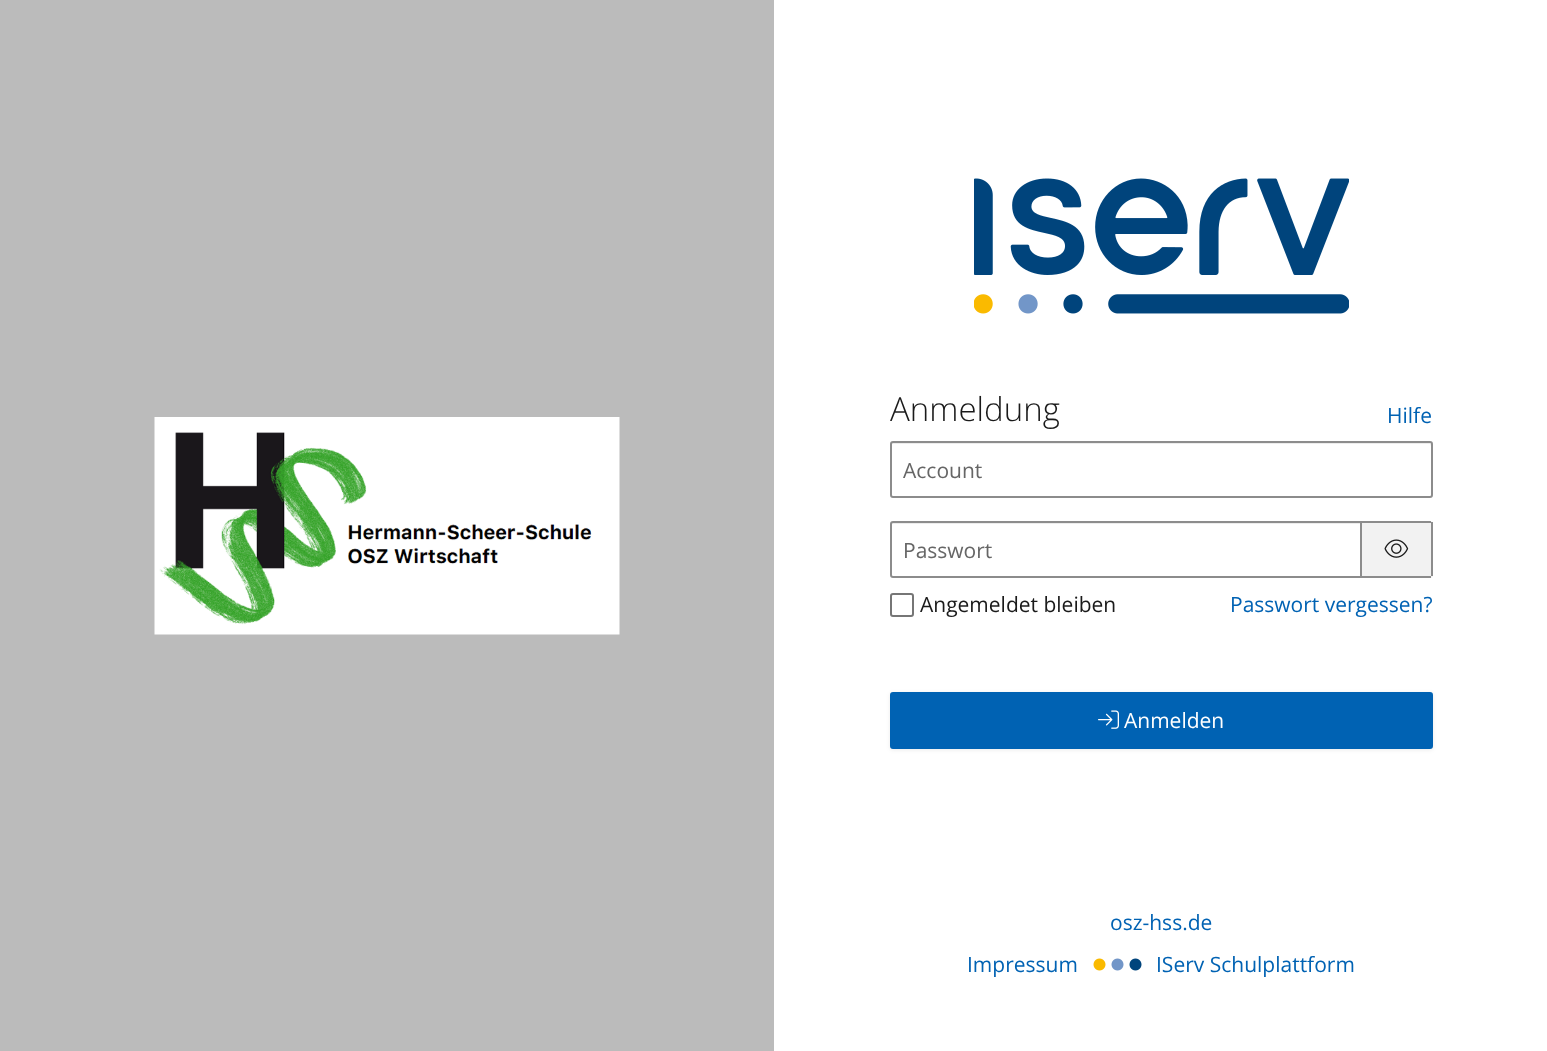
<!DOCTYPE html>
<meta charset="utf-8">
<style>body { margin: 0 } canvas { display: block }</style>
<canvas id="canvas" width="1547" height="1051"></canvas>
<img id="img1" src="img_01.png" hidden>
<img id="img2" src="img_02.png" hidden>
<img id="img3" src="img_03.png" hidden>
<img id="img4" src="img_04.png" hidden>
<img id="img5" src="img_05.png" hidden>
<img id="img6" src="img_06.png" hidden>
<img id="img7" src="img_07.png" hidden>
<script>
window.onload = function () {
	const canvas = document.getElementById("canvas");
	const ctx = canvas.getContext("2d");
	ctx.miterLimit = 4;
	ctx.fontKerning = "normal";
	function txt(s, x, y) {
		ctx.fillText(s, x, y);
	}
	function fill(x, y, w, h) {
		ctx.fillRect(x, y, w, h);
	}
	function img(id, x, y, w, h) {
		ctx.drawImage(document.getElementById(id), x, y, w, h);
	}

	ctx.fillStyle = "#FFFFFF";
	fill(0, 0, 1547, 1051);
	ctx.fillStyle = "#BBBBBB";
	fill(0, 0, 774, 1051);
	img("img1", 154, 417, 466, 218);
	img("img2", 974, 178, 375, 136);
	ctx.fillStyle = "#ECECEC";
	ctx.beginPath();
	ctx.moveTo(892, 444);
	ctx.lineTo(1430, 444);
	ctx.lineTo(1431, 446);
	ctx.lineTo(1431, 444);
	ctx.lineTo(1430, 443);
	ctx.lineTo(892, 443);
	ctx.bezierCurveTo(891, 444, 891, 445, 891, 446);
	ctx.closePath();
	ctx.fill();
	ctx.beginPath();
	ctx.roundRect(891, 442, 541, 55, 2);
	ctx.strokeStyle = "#8C8C8C";
	ctx.lineWidth = 2;
	ctx.stroke();
	ctx.beginPath();
	ctx.moveTo(892, 522);
	ctx.bezierCurveTo(891, 522, 891, 523, 891, 524);
	ctx.lineTo(1360, 524);
	ctx.lineTo(1360, 576);
	ctx.lineTo(1361, 576);
	ctx.lineTo(1361, 522);
	ctx.closePath();
	ctx.fill();
	ctx.beginPath();
	ctx.roundRect(891, 522, 470, 55, [2, 0, 0, 2]);
	ctx.stroke();
	ctx.fillStyle = "#F2F2F2";
	ctx.beginPath();
	ctx.roundRect(1362, 521, 71, 57, [0, 3, 3, 0]);
	ctx.fill();
	ctx.fillStyle = "#8C8C8C";
	fill(1362, 521, 69, 2);
	fill(1431, 522, 2, 54);
	fill(1362, 576, 69, 2);
	img("img3", 1384, 539, 25, 19);
	ctx.beginPath();
	ctx.roundRect(891, 594, 22, 22, 2);
	ctx.strokeStyle = "#767676";
	ctx.stroke();
	ctx.fillStyle = "rgba(0, 0, 0, 0.08)";
	ctx.filter = "blur(2px)";
	ctx.beginPath();
	ctx.roundRect(890, 693, 543, 57, 3);
	ctx.fill();
	ctx.filter = "none";
	ctx.fillStyle = "#0062B3";
	ctx.beginPath();
	ctx.roundRect(891, 693, 541, 55, 2);
	ctx.fill();
	ctx.strokeStyle = "#0062B3";
	ctx.stroke();
	img("img4", 1098, 710, 21, 19);
	img("img5", 1093, 958, 13, 13);
	img("img6", 1111, 958, 13, 13);
	img("img7", 1129, 958, 13, 13);
	ctx.font = "300 33px Open Sans";
	ctx.fillStyle = "#1A1A1A";
	txt("Anmeldung", 890, 421);
	ctx.font = "21px Open Sans";
	ctx.fillStyle = "#0062B3";
	txt("Hilfe", 1387, 423);
	ctx.fillStyle = "#666666";
	txt("Account", 903, 478);
	txt("Passwort", 903, 558);
	ctx.fillStyle = "#1A1A1A";
	txt("Angemeldet bleiben", 920, 612);
	ctx.fillStyle = "#0062B3";
	txt("Passwort vergessen?", 1230, 612);
	ctx.fillStyle = "#FFFFFF";
	txt("Anmelden", 1124, 728);
	ctx.fillStyle = "#0062B3";
	txt("osz-hss.de", 1110, 930);
	txt("Impressum", 967, 972);
	txt("IServ Schulplattform", 1156, 972);
};
</script>
